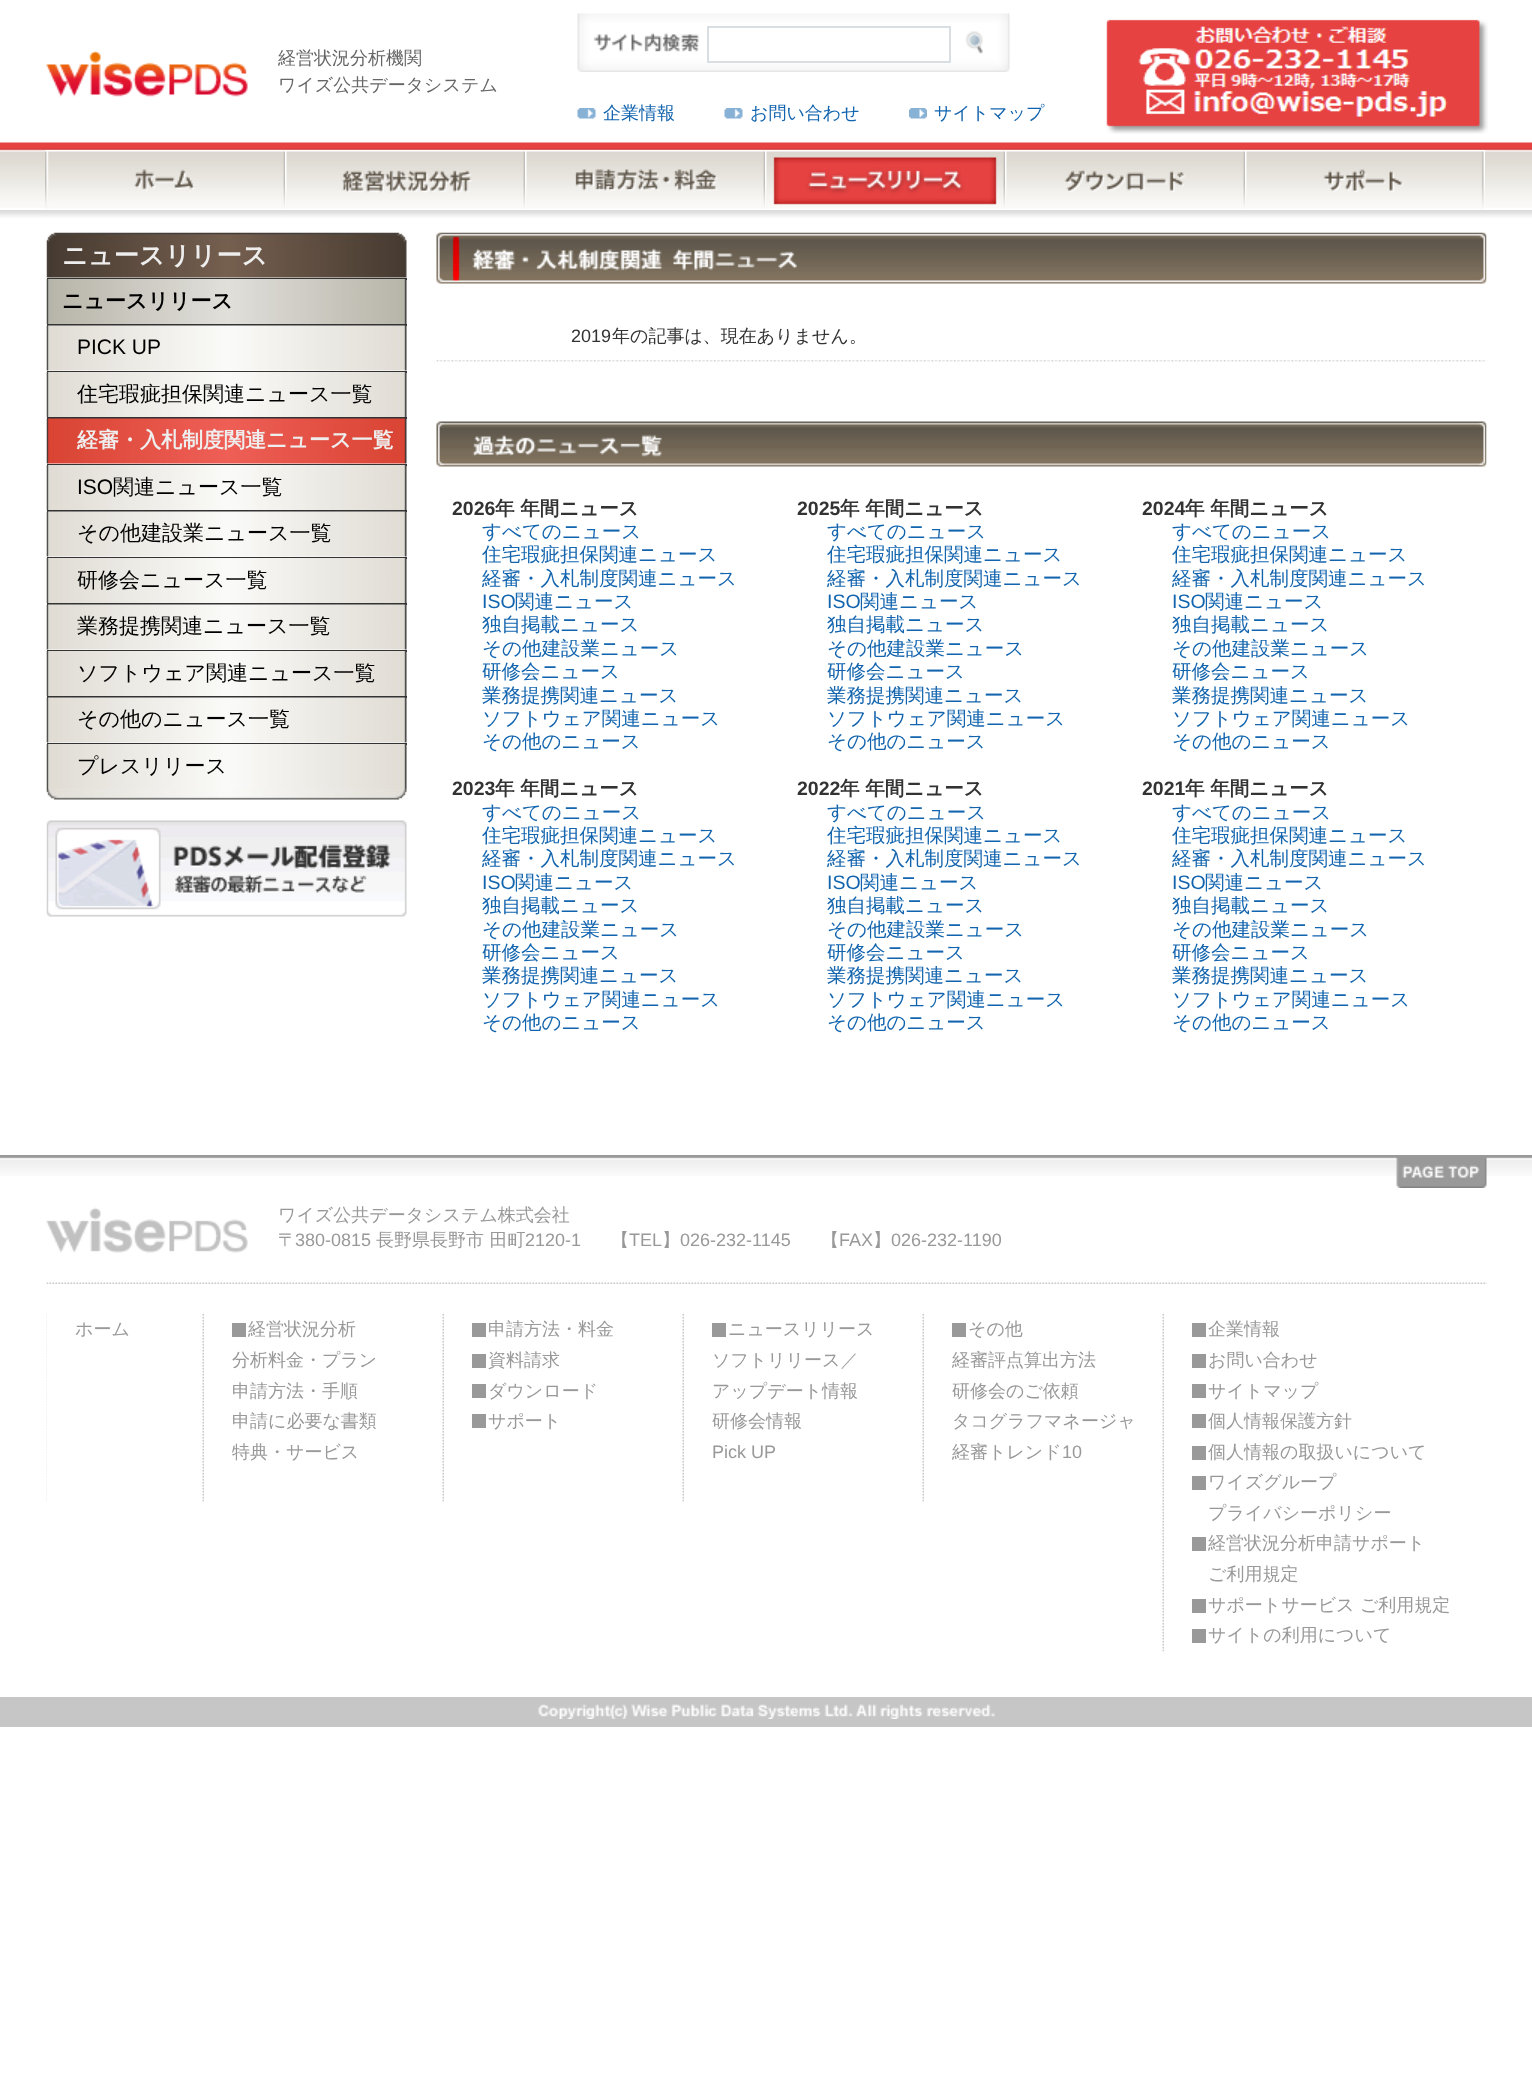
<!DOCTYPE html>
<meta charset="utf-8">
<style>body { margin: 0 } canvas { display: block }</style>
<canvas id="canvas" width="1532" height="2082"></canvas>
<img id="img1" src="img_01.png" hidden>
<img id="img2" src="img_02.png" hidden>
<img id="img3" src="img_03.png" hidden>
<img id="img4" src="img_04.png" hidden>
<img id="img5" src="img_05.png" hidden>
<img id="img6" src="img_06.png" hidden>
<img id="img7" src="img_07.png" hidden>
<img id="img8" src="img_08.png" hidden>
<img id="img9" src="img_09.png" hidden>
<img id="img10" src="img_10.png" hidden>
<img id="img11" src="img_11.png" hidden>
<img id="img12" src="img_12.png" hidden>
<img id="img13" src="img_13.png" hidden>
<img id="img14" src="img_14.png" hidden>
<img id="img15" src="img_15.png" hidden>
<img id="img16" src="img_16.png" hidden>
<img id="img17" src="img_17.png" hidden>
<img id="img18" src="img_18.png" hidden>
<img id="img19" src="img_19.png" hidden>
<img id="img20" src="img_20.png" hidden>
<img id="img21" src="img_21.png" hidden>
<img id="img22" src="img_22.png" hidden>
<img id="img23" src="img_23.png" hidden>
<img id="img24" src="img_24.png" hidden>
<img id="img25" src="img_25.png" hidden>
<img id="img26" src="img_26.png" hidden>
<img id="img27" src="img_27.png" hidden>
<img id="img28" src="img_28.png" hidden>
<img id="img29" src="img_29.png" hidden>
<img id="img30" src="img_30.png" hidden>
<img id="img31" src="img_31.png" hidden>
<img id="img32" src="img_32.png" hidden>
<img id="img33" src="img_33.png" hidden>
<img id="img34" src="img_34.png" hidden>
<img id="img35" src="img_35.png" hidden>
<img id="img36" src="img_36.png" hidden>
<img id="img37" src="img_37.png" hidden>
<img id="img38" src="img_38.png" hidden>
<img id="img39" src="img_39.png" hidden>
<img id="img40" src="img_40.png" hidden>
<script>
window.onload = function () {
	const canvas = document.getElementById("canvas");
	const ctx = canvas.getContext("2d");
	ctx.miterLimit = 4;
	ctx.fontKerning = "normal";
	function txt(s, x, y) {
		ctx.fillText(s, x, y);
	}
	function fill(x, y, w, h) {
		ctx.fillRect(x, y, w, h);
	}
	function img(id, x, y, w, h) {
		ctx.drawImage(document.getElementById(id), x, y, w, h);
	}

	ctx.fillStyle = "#FFFFFF";
	fill(0, 0, 1532, 2082);
	img("img1", 0, 142, 1532, 66);
	img("img2", 46, 50, 202, 47);
	img("img3", 577, 13, 433, 59);
	img("img4", 594, 32, 105, 20);
	ctx.strokeStyle = "#D8DEE2";
	ctx.lineWidth = 2;
	ctx.strokeRect(708, 27, 242, 35);
	img("img5", 966, 31, 17, 23);
	img("img6", 1106, 19, 382, 115);
	img("img7", 577, 108, 19, 11);
	img("img7", 724, 108, 19, 11);
	img("img8", 909, 108, 18, 11);
	img("img9", 45, 150, 240, 59);
	img("img10", 285, 150, 240, 59);
	img("img11", 525, 150, 240, 59);
	img("img12", 765, 150, 240, 59);
	img("img13", 1005, 150, 240, 59);
	img("img14", 1245, 150, 240, 59);
	img("img15", 0, 210, 1532, 8);
	img("img16", 46, 232, 361, 46);
	ctx.fillStyle = "#333333";
	fill(47, 278, 360, 2);
	img("img17", 46, 279, 361, 45);
	fill(47, 324, 360, 2);
	img("img18", 46, 325, 361, 46);
	fill(47, 371, 360, 2);
	img("img19", 46, 372, 361, 45);
	fill(47, 417, 360, 2);
	img("img20", 46, 418, 361, 46);
	fill(47, 464, 360, 2);
	img("img21", 46, 465, 361, 45);
	fill(47, 510, 360, 2);
	img("img22", 46, 511, 361, 46);
	fill(47, 557, 360, 2);
	img("img23", 46, 558, 361, 45);
	fill(47, 603, 360, 2);
	img("img24", 46, 604, 361, 46);
	fill(47, 650, 360, 2);
	img("img25", 46, 651, 361, 45);
	fill(47, 696, 360, 2);
	img("img26", 46, 697, 361, 46);
	fill(47, 743, 360, 2);
	img("img27", 46, 744, 361, 45);
	img("img28", 46, 789, 361, 11);
	img("img29", 46, 820, 361, 97);
	img("img30", 436, 232, 1051, 52);
	img("img31", 436, 360, 1051, 2);
	img("img32", 436, 421, 1051, 46);
	img("img33", 0, 1155, 1532, 21);
	img("img34", 1396, 1157, 91, 31);
	img("img35", 46, 1282, 1441, 2);
	img("img36", 46, 1207, 202, 46);
	img("img37", 46, 1314, 1, 188);
	img("img38", 202, 1314, 2, 188);
	ctx.fillStyle = "#999999";
	fill(232, 1323, 14, 14);
	img("img38", 442, 1314, 2, 188);
	fill(472, 1323, 14, 14);
	fill(472, 1354, 14, 14);
	fill(472, 1384, 14, 14);
	fill(472, 1414, 14, 14);
	img("img38", 682, 1314, 2, 188);
	fill(712, 1323, 14, 14);
	img("img38", 922, 1314, 2, 188);
	fill(952, 1323, 14, 14);
	img("img39", 1162, 1314, 2, 338);
	fill(1192, 1323, 14, 14);
	fill(1192, 1354, 14, 14);
	fill(1192, 1384, 14, 14);
	fill(1192, 1414, 14, 14);
	fill(1192, 1446, 14, 14);
	fill(1192, 1476, 14, 14);
	fill(1192, 1537, 14, 14);
	fill(1192, 1599, 14, 14);
	fill(1192, 1629, 14, 14);
	ctx.fillStyle = "#C6C6C6";
	fill(0, 1697, 1532, 30);
	img("img40", 538, 1704, 457, 15);
	ctx.font = "500 18px WenQuanYi Zen Hei";
	ctx.fillStyle = "#666666";
	txt("経営状況分析機関", 278, 64);
	txt("ワイズ公共データシステム", 278, 91);
	ctx.fillStyle = "#1264AE";
	txt("企業情報", 603, 119);
	txt("お問い合わせ", 750, 119);
	txt("サイトマップ", 934, 119);
	ctx.font = "bold 25.25px WenQuanYi Zen Hei";
	ctx.fillStyle = "#EEEEEE";
	txt("ニュースリリース", 62, 264);
	ctx.font = "bold 21px WenQuanYi Zen Hei";
	ctx.fillStyle = "#000000";
	txt("ニュースリリース", 62, 308);
	ctx.font = "21px Liberation Sans";
	txt("PICK UP", 77, 354);
	ctx.font = "500 21px WenQuanYi Zen Hei";
	txt("住宅瑕疵担保関連ニュース一覧", 77, 401);
	ctx.font = "bold 21px WenQuanYi Zen Hei";
	ctx.fillStyle = "#EEEEEE";
	txt("経審・入札制度関連ニュース一覧", 77, 447);
	ctx.font = "21px Liberation Sans";
	ctx.fillStyle = "#000000";
	txt("ISO", 77, 494);
	ctx.font = "500 21px WenQuanYi Zen Hei";
	txt("関連ニュース一覧", 113, 494);
	txt("その他建設業ニュース一覧", 77, 540);
	txt("研修会ニュース一覧", 77, 587);
	txt("業務提携関連ニュース一覧", 77, 633);
	txt("ソフトウェア関連ニュース一覧", 77, 680);
	txt("その他のニュース一覧", 77, 726);
	txt("プレスリリース", 77, 773);
	ctx.font = "18px Liberation Sans";
	ctx.fillStyle = "#333333";
	txt("2019", 571, 342);
	ctx.font = "500 18px WenQuanYi Zen Hei";
	txt("年の記事は、現在ありません。", 612, 342);
	ctx.font = "bold 19.5px Liberation Sans";
	txt("2026", 452, 515);
	ctx.font = "bold 19.5px WenQuanYi Zen Hei";
	txt("年 年間ニュース", 495, 515);
	ctx.font = "500 19.5px WenQuanYi Zen Hei";
	ctx.fillStyle = "#1264AE";
	txt("すべてのニュース", 482, 538);
	txt("住宅瑕疵担保関連ニュース", 482, 561);
	txt("経審・入札制度関連ニュース", 482, 585);
	ctx.font = "19.5px Liberation Sans";
	txt("ISO", 482, 608);
	ctx.font = "500 19.5px WenQuanYi Zen Hei";
	txt("関連ニュース", 515, 608);
	txt("独自掲載ニュース", 482, 631);
	txt("その他建設業ニュース", 482, 655);
	txt("研修会ニュース", 482, 678);
	txt("業務提携関連ニュース", 482, 702);
	txt("ソフトウェア関連ニュース", 482, 725);
	txt("その他のニュース", 482, 748);
	ctx.font = "bold 19.5px Liberation Sans";
	ctx.fillStyle = "#333333";
	txt("2025", 797, 515);
	ctx.font = "bold 19.5px WenQuanYi Zen Hei";
	txt("年 年間ニュース", 840, 515);
	ctx.font = "500 19.5px WenQuanYi Zen Hei";
	ctx.fillStyle = "#1264AE";
	txt("すべてのニュース", 827, 538);
	txt("住宅瑕疵担保関連ニュース", 827, 561);
	txt("経審・入札制度関連ニュース", 827, 585);
	ctx.font = "19.5px Liberation Sans";
	txt("ISO", 827, 608);
	ctx.font = "500 19.5px WenQuanYi Zen Hei";
	txt("関連ニュース", 860, 608);
	txt("独自掲載ニュース", 827, 631);
	txt("その他建設業ニュース", 827, 655);
	txt("研修会ニュース", 827, 678);
	txt("業務提携関連ニュース", 827, 702);
	txt("ソフトウェア関連ニュース", 827, 725);
	txt("その他のニュース", 827, 748);
	ctx.font = "bold 19.5px Liberation Sans";
	ctx.fillStyle = "#333333";
	txt("2024", 1142, 515);
	ctx.font = "bold 19.5px WenQuanYi Zen Hei";
	txt("年 年間ニュース", 1185, 515);
	ctx.font = "500 19.5px WenQuanYi Zen Hei";
	ctx.fillStyle = "#1264AE";
	txt("すべてのニュース", 1172, 538);
	txt("住宅瑕疵担保関連ニュース", 1172, 561);
	txt("経審・入札制度関連ニュース", 1172, 585);
	ctx.font = "19.5px Liberation Sans";
	txt("ISO", 1172, 608);
	ctx.font = "500 19.5px WenQuanYi Zen Hei";
	txt("関連ニュース", 1205, 608);
	txt("独自掲載ニュース", 1172, 631);
	txt("その他建設業ニュース", 1172, 655);
	txt("研修会ニュース", 1172, 678);
	txt("業務提携関連ニュース", 1172, 702);
	txt("ソフトウェア関連ニュース", 1172, 725);
	txt("その他のニュース", 1172, 748);
	ctx.font = "bold 19.5px Liberation Sans";
	ctx.fillStyle = "#333333";
	txt("2023", 452, 795);
	ctx.font = "bold 19.5px WenQuanYi Zen Hei";
	txt("年 年間ニュース", 495, 795);
	ctx.font = "500 19.5px WenQuanYi Zen Hei";
	ctx.fillStyle = "#1264AE";
	txt("すべてのニュース", 482, 819);
	txt("住宅瑕疵担保関連ニュース", 482, 842);
	txt("経審・入札制度関連ニュース", 482, 865);
	ctx.font = "19.5px Liberation Sans";
	txt("ISO", 482, 889);
	ctx.font = "500 19.5px WenQuanYi Zen Hei";
	txt("関連ニュース", 515, 889);
	txt("独自掲載ニュース", 482, 912);
	txt("その他建設業ニュース", 482, 936);
	txt("研修会ニュース", 482, 959);
	txt("業務提携関連ニュース", 482, 982);
	txt("ソフトウェア関連ニュース", 482, 1006);
	txt("その他のニュース", 482, 1029);
	ctx.font = "bold 19.5px Liberation Sans";
	ctx.fillStyle = "#333333";
	txt("2022", 797, 795);
	ctx.font = "bold 19.5px WenQuanYi Zen Hei";
	txt("年 年間ニュース", 840, 795);
	ctx.font = "500 19.5px WenQuanYi Zen Hei";
	ctx.fillStyle = "#1264AE";
	txt("すべてのニュース", 827, 819);
	txt("住宅瑕疵担保関連ニュース", 827, 842);
	txt("経審・入札制度関連ニュース", 827, 865);
	ctx.font = "19.5px Liberation Sans";
	txt("ISO", 827, 889);
	ctx.font = "500 19.5px WenQuanYi Zen Hei";
	txt("関連ニュース", 860, 889);
	txt("独自掲載ニュース", 827, 912);
	txt("その他建設業ニュース", 827, 936);
	txt("研修会ニュース", 827, 959);
	txt("業務提携関連ニュース", 827, 982);
	txt("ソフトウェア関連ニュース", 827, 1006);
	txt("その他のニュース", 827, 1029);
	ctx.font = "bold 19.5px Liberation Sans";
	ctx.fillStyle = "#333333";
	txt("2021", 1142, 795);
	ctx.font = "bold 19.5px WenQuanYi Zen Hei";
	txt("年 年間ニュース", 1185, 795);
	ctx.font = "500 19.5px WenQuanYi Zen Hei";
	ctx.fillStyle = "#1264AE";
	txt("すべてのニュース", 1172, 819);
	txt("住宅瑕疵担保関連ニュース", 1172, 842);
	txt("経審・入札制度関連ニュース", 1172, 865);
	ctx.font = "19.5px Liberation Sans";
	txt("ISO", 1172, 889);
	ctx.font = "500 19.5px WenQuanYi Zen Hei";
	txt("関連ニュース", 1205, 889);
	txt("独自掲載ニュース", 1172, 912);
	txt("その他建設業ニュース", 1172, 936);
	txt("研修会ニュース", 1172, 959);
	txt("業務提携関連ニュース", 1172, 982);
	txt("ソフトウェア関連ニュース", 1172, 1006);
	txt("その他のニュース", 1172, 1029);
	ctx.font = "500 18px WenQuanYi Zen Hei";
	ctx.fillStyle = "#999999";
	txt("ワイズ公共データシステム株式会社", 278, 1221);
	txt("〒", 278, 1246);
	ctx.font = "18px Liberation Sans";
	txt("380-0815", 295, 1246);
	ctx.font = "500 18px WenQuanYi Zen Hei";
	txt("長野県長野市 田町", 376, 1246);
	ctx.font = "18px Liberation Sans";
	txt("2120-1", 525, 1246);
	ctx.font = "500 18px WenQuanYi Zen Hei";
	txt("【", 611, 1246);
	ctx.font = "18px Liberation Sans";
	txt("TEL", 629, 1246);
	ctx.font = "500 18px WenQuanYi Zen Hei";
	txt("】", 662, 1246);
	ctx.font = "18px Liberation Sans";
	txt("026-232-1145", 680, 1246);
	ctx.font = "500 18px WenQuanYi Zen Hei";
	txt("【", 821, 1246);
	ctx.font = "18px Liberation Sans";
	txt("FAX", 839, 1246);
	ctx.font = "500 18px WenQuanYi Zen Hei";
	txt("】", 873, 1246);
	ctx.font = "18px Liberation Sans";
	txt("026-232-1190", 891, 1246);
	ctx.font = "500 18px WenQuanYi Zen Hei";
	txt("ホーム", 75, 1335);
	txt("経営状況分析", 248, 1335);
	txt("分析料金・プラン", 232, 1366);
	txt("申請方法・手順", 232, 1397);
	txt("申請に必要な書類", 232, 1427);
	txt("特典・サービス", 232, 1458);
	txt("申請方法・料金", 488, 1335);
	txt("資料請求", 488, 1366);
	txt("ダウンロード", 488, 1397);
	txt("サポート", 488, 1427);
	txt("ニュースリリース", 728, 1335);
	txt("ソフトリリース／", 712, 1366);
	txt("アップデート情報", 712, 1397);
	txt("研修会情報", 712, 1427);
	ctx.font = "18px Liberation Sans";
	txt("Pick UP", 712, 1458);
	ctx.font = "500 18px WenQuanYi Zen Hei";
	txt("その他", 968, 1335);
	txt("経審評点算出方法", 952, 1366);
	txt("研修会のご依頼", 952, 1397);
	txt("タコグラフマネージャ", 952, 1427);
	txt("経審トレンド", 952, 1458);
	ctx.font = "18px Liberation Sans";
	txt("10", 1062, 1458);
	ctx.font = "500 18px WenQuanYi Zen Hei";
	txt("企業情報", 1208, 1335);
	txt("お問い合わせ", 1208, 1366);
	txt("サイトマップ", 1208, 1397);
	txt("個人情報保護方針", 1208, 1427);
	txt("個人情報の取扱いについて", 1208, 1458);
	txt("ワイズグループ", 1208, 1488);
	txt("プライバシーポリシー", 1208, 1519);
	txt("経営状況分析申請サポート", 1208, 1549);
	txt("ご利用規定", 1208, 1580);
	txt("サポートサービス ご利用規定", 1208, 1611);
	txt("サイトの利用について", 1208, 1641);
};
</script>
